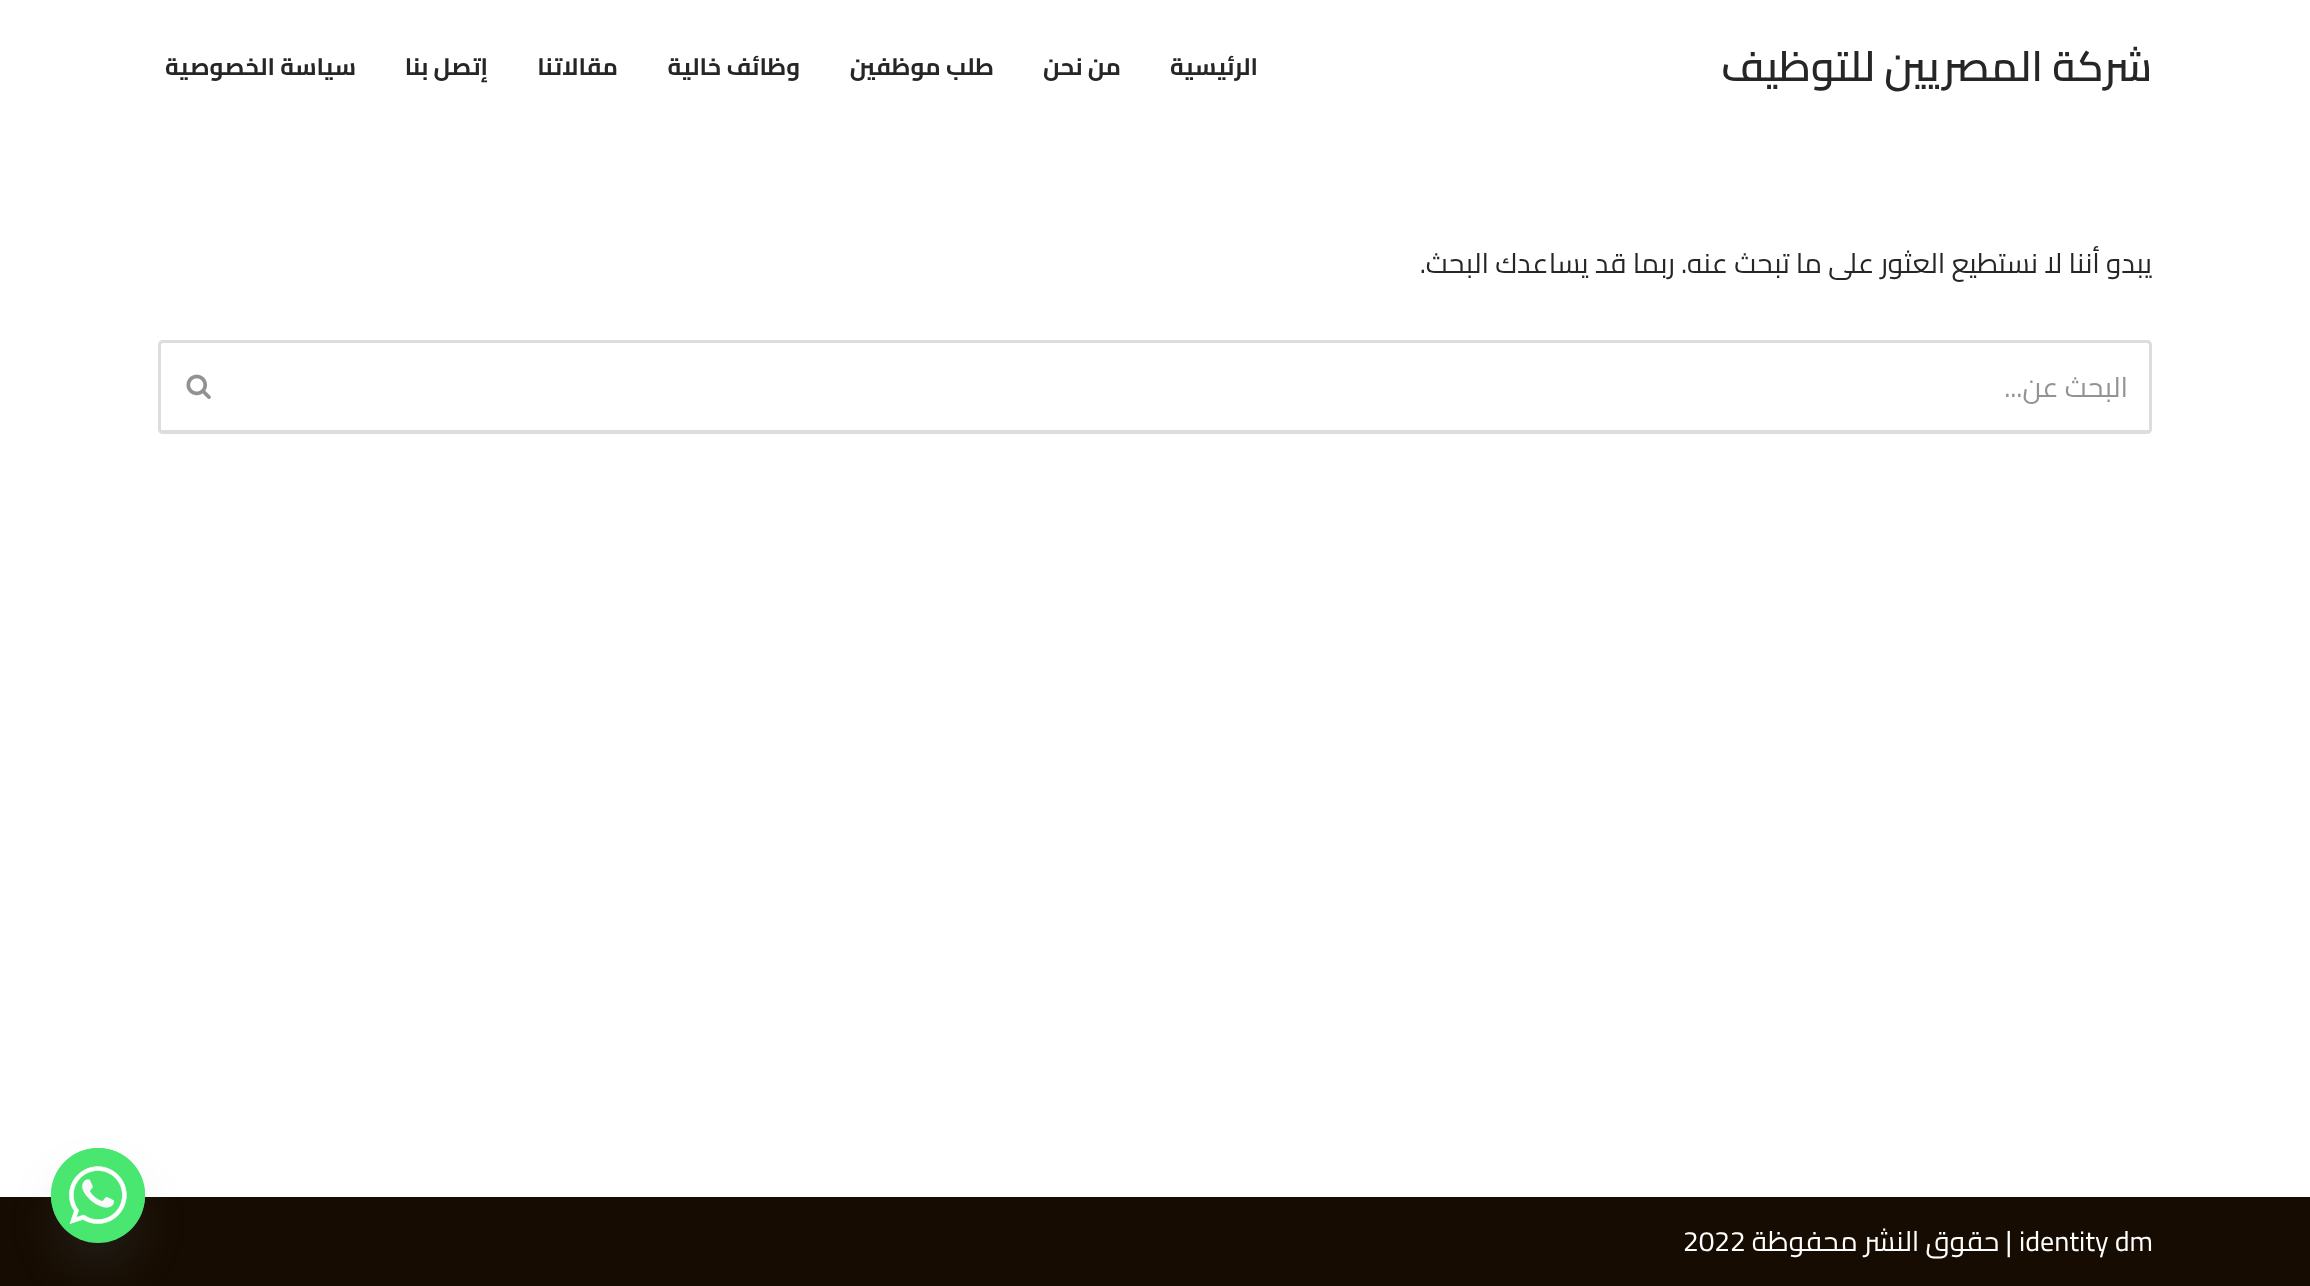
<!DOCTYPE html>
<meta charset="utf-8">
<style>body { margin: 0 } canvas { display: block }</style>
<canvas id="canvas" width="2310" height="1286"></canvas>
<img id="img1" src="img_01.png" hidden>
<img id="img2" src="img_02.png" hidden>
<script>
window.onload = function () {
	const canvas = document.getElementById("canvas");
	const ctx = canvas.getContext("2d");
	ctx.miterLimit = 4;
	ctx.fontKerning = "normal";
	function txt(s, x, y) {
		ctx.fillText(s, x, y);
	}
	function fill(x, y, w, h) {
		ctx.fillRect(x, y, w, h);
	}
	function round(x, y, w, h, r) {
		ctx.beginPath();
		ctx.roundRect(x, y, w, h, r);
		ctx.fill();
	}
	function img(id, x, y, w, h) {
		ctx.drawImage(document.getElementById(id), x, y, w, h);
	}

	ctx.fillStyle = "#FFFFFF";
	fill(0, 0, 2310, 1286);
	ctx.fillStyle = "#DDDDDD";
	ctx.beginPath();
	ctx.moveTo(236, 340);
	ctx.lineTo(2147, 340);
	ctx.bezierCurveTo(2150, 340, 2152, 342, 2152, 345);
	ctx.lineTo(2152, 429);
	ctx.bezierCurveTo(2152, 432, 2150, 434, 2147, 434);
	ctx.lineTo(236, 434);
	ctx.closePath();
	ctx.moveTo(236, 343);
	ctx.lineTo(2147, 343);
	ctx.bezierCurveTo(2148, 343, 2149, 344, 2149, 345);
	ctx.lineTo(2149, 429);
	ctx.bezierCurveTo(2149, 430, 2148, 430, 2147, 430);
	ctx.lineTo(236, 430);
	ctx.closePath();
	ctx.fill("evenodd");
	ctx.beginPath();
	ctx.moveTo(163, 340);
	ctx.lineTo(236, 340);
	ctx.lineTo(236, 434);
	ctx.lineTo(163, 434);
	ctx.bezierCurveTo(160, 434, 158, 432, 158, 429);
	ctx.lineTo(158, 345);
	ctx.bezierCurveTo(158, 342, 160, 340, 163, 340);
	ctx.closePath();
	ctx.moveTo(163, 343);
	ctx.lineTo(236, 343);
	ctx.lineTo(236, 430);
	ctx.lineTo(163, 430);
	ctx.bezierCurveTo(162, 430, 161, 430, 161, 429);
	ctx.lineTo(161, 345);
	ctx.bezierCurveTo(161, 344, 162, 343, 163, 343);
	ctx.closePath();
	ctx.fill("evenodd");
	img("img1", 186, 374, 25, 25);
	ctx.fillStyle = "#170C01";
	fill(0, 1197, 2310, 89);
	ctx.fillStyle = "rgba(73, 104, 126, 0.16)";
	ctx.filter = "blur(21px)";
	ctx.beginPath();
	ctx.roundRect(51, 1176, 94, 95, 47);
	ctx.fill();
	ctx.filter = "none";
	ctx.fillStyle = "#49E670";
	round(51, 1148, 94, 95, 47);
	img("img2", 51, 1148, 94, 81);
	ctx.direction = "rtl";
	ctx.font = "600 42px Cairo";
	ctx.fillStyle = "#262626";
	txt("شركة المصريين للتوظيف", 2152, 81);
	ctx.font = "bold 23.75px Cairo";
	txt("الرئيسية", 1258, 75);
	txt("من نحن", 1121, 75);
	txt("طلب موظفين", 994, 75);
	txt("وظائف خالية", 800, 75);
	txt("مقالاتنا", 618, 75);
	txt("إتصل بنا", 488, 75);
	txt("سياسة الخصوصية", 356, 75);
	ctx.font = "28px Cairo";
	txt("يبدو أننا لا نستطيع العثور على ما تبحث عنه. ربما قد يساعدك البحث.", 2152, 273);
	ctx.fillStyle = "#939393";
	txt("البحث عن...", 2128, 397);
	ctx.direction = "ltr";
	ctx.fillStyle = "#FFFFFF";
	txt("identity dm", 2019, 1251);
	ctx.direction = "rtl";
	txt("| حقوق النشر محفوظة", 2012, 1251);
	ctx.direction = "ltr";
	txt("2022", 1683, 1251);
};
</script>
